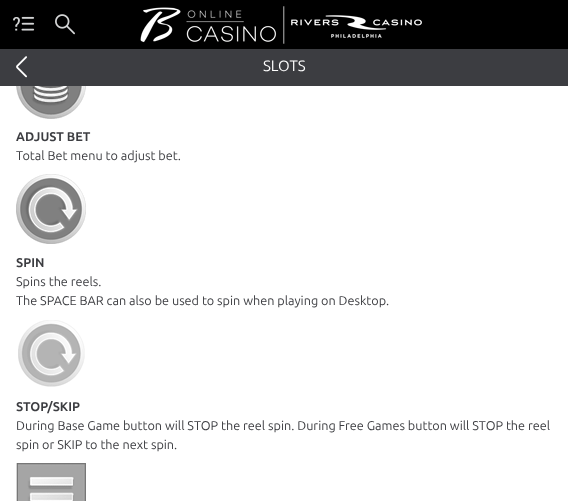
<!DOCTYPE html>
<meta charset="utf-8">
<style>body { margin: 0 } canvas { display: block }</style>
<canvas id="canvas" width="568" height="501"></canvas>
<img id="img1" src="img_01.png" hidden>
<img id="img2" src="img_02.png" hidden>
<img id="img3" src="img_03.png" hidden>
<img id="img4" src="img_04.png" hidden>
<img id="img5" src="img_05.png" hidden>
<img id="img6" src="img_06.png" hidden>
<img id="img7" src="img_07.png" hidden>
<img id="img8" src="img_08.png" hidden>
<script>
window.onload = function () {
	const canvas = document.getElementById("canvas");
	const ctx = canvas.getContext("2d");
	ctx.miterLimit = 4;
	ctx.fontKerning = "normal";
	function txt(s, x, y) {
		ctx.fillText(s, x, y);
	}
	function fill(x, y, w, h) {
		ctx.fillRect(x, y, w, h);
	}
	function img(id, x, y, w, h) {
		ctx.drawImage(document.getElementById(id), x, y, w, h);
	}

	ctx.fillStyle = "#FFFFFF";
	fill(0, 0, 568, 501);
	ctx.fillStyle = "#000000";
	fill(0, 0, 568, 49);
	img("img1", 13, 16, 22, 15);
	img("img2", 55, 14, 20, 21);
	img("img3", 140, 6, 282, 38);
	ctx.fillStyle = "#3C3D41";
	fill(0, 49, 568, 37);
	img("img4", 16, 56, 11, 22);
	img("img5", 16, 86, 70, 33);
	img("img6", 16, 174, 70, 70);
	img("img7", 18, 320, 67, 67);
	img("img8", 16, 463, 70, 38);
	ctx.font = "15px Ubuntu";
	ctx.fillStyle = "#FFFFFF";
	txt("SLOTS", 263, 71);
	ctx.font = "bold 12.65px Ubuntu";
	ctx.fillStyle = "#3C3D41";
	txt("ADJUST BET", 16, 141);
	ctx.font = "12.65px Ubuntu";
	txt("Total Bet menu to adjust bet.", 16, 160);
	ctx.font = "bold 12.65px Ubuntu";
	txt("SPIN", 16, 267);
	ctx.font = "12.65px Ubuntu";
	txt("Spins the reels.", 16, 286);
	txt("The SPACE BAR can also be used to spin when playing on Desktop.", 16, 305);
	ctx.font = "bold 12.65px Ubuntu";
	txt("STOP/SKIP", 16, 411);
	ctx.font = "12.65px Ubuntu";
	txt("During Base Game button will STOP the reel spin. During Free Games button will STOP the reel", 16, 430);
	txt("spin or SKIP to the next spin.", 16, 449);
};
</script>
